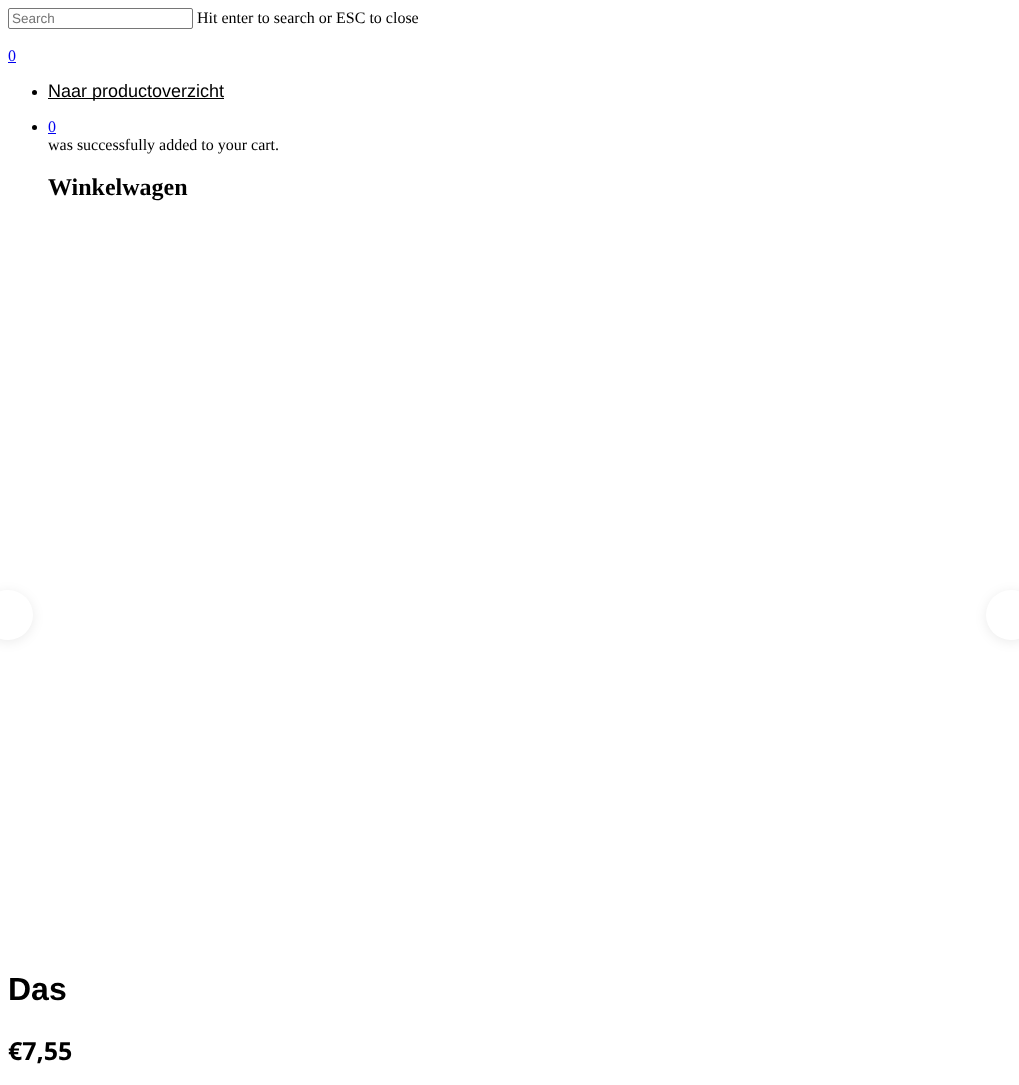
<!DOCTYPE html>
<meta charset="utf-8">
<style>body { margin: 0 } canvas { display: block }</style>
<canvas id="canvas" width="1019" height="1085"></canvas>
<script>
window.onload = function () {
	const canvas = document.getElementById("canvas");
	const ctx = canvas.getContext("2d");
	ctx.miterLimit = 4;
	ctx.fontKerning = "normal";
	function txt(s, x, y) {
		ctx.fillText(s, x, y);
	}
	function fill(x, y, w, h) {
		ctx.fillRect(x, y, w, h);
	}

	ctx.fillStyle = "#FFFFFF";
	fill(0, 0, 1019, 1085);
	ctx.beginPath();
	ctx.roundRect(8.5, 8.5, 184, 20, 1.5);
	ctx.strokeStyle = "#767676";
	ctx.stroke();
	ctx.fillStyle = "#0000EE";
	fill(8, 62, 8, 1);
	ctx.fillStyle = "#000000";
	ctx.beginPath();
	ctx.arc(34.5, 92.5, 2.5, 0, Math.PI * 2);
	ctx.fill();
	fill(48, 98, 176, 1);
	ctx.beginPath();
	ctx.arc(34.5, 127.5, 2.5, 0, Math.PI * 2);
	ctx.fill();
	ctx.fillStyle = "#0000EE";
	fill(48, 133, 8, 1);
	ctx.fillStyle = "rgba(0, 0, 0, 0.08)";
	ctx.filter = "blur(6px)";
	ctx.beginPath();
	ctx.roundRect(-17, 592, 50, 50, 25);
	ctx.fill();
	ctx.filter = "none";
	ctx.fillStyle = "#FFFFFF";
	ctx.beginPath();
	ctx.arc(8, 615, 25, 0, Math.PI * 2);
	ctx.fill();
	ctx.fillStyle = "rgba(0, 0, 0, 0.08)";
	ctx.filter = "blur(6px)";
	ctx.beginPath();
	ctx.roundRect(986, 592, 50, 50, 25);
	ctx.fill();
	ctx.filter = "none";
	ctx.fillStyle = "#FFFFFF";
	ctx.beginPath();
	ctx.arc(1011, 615, 25, 0, Math.PI * 2);
	ctx.fill();
	ctx.font = "13.5px Liberation Sans";
	ctx.fillStyle = "#757575";
	txt("Search", 12, 23);
	ctx.font = "16px Liberation Serif";
	ctx.fillStyle = "#000000";
	txt("Hit enter to search or ESC to close", 197, 23);
	ctx.fillStyle = "#0000EE";
	txt("0", 8, 61);
	ctx.font = "18px Liberation Sans";
	ctx.fillStyle = "#000000";
	txt("Naar productoverzicht", 48, 97);
	ctx.font = "16px Liberation Serif";
	ctx.fillStyle = "#0000EE";
	txt("0", 48, 132);
	ctx.fillStyle = "#000000";
	txt("was successfully added to your cart.", 48, 150);
	ctx.font = "bold 24px Liberation Serif";
	txt("Winkelwagen", 48, 195);
	ctx.font = "bold 32px Liberation Sans";
	txt("Das", 8, 1000);
	ctx.font = "bold 25px Open Sans";
	txt("€7,55", 8, 1060);
};
</script>
